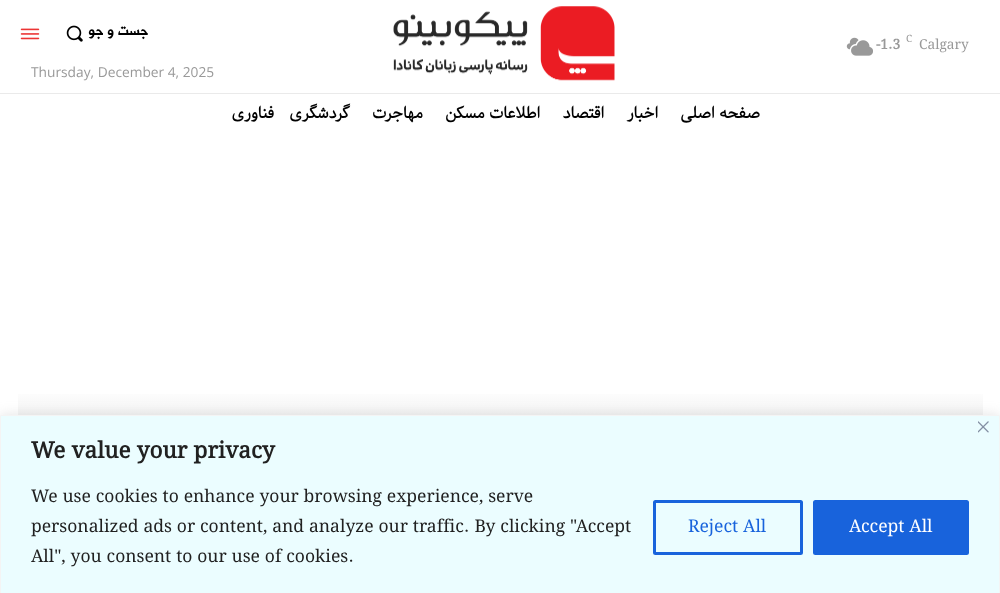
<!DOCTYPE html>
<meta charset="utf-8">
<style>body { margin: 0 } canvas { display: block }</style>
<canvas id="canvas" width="1000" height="593"></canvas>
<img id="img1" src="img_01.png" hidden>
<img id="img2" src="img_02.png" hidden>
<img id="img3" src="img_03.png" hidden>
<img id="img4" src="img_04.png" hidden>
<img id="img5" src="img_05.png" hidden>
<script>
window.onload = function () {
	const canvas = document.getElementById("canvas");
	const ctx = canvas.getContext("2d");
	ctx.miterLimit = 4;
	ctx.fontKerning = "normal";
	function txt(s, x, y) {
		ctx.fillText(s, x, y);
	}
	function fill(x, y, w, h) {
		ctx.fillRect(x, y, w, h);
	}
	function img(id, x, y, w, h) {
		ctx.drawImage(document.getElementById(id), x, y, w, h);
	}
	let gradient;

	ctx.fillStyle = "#FFFFFF";
	fill(0, 0, 1000, 593);
	img("img1", 20, 28, 20, 12);
	img("img2", 66, 25, 17, 17);
	img("img3", 393, 6, 222, 75);
	img("img4", 846, 37, 27, 19);
	ctx.fillStyle = "#EAEAEA";
	fill(0, 93, 1000, 1);
	gradient = ctx.createLinearGradient(500, 137, 500, 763);
	gradient.addColorStop(0, "#FFFFFF");
	gradient.addColorStop(0.4, "#FFFFFF");
	gradient.addColorStop(1, "#666666");
	ctx.fillStyle = gradient;
	fill(18, 394, 965, 21);
	ctx.fillStyle = "rgba(172, 171, 171, 0.3)";
	ctx.filter = "blur(6px)";
	ctx.beginPath();
	ctx.rect(0, 414, 1000, 179);
	ctx.fill();
	ctx.filter = "none";
	ctx.fillStyle = "#EBFDFF";
	ctx.beginPath();
	ctx.rect(0.5, 415.5, 999, 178);
	ctx.fill();
	ctx.strokeStyle = "#F4F4F4";
	ctx.stroke();
	img("img5", 978, 421, 11, 12);
	ctx.beginPath();
	ctx.roundRect(654.5, 501.5, 147, 52, 1);
	ctx.strokeStyle = "#1863DC";
	ctx.lineWidth = 3;
	ctx.stroke();
	ctx.fillStyle = "#1863DC";
	ctx.beginPath();
	ctx.roundRect(814.5, 501.5, 153, 52, 1);
	ctx.fill();
	ctx.stroke();
	ctx.direction = "rtl";
	ctx.font = "bold 16.25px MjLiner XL";
	ctx.fillStyle = "#000000";
	txt("جست و جو", 148, 35);
	ctx.direction = "ltr";
	ctx.font = "13.75px Open Sans";
	ctx.fillStyle = "#999999";
	txt("Thursday, December 4, 2025", 31, 77);
	ctx.font = "bold 13.75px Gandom";
	txt("-1.3", 876, 49);
	ctx.font = "10px Gandom";
	txt("C", 906, 42);
	ctx.font = "13.75px Gandom";
	txt("Calgary", 919, 49);
	ctx.direction = "rtl";
	ctx.font = "bold 16.25px Gandom";
	ctx.fillStyle = "#000000";
	txt("فناوری", 274, 118);
	txt("گردشگری", 350, 118);
	txt("مهاجرت", 423, 118);
	txt("اطلاعات مسکن", 540, 118);
	txt("اقتصاد", 604, 118);
	txt("اخبار", 658, 118);
	txt("صفحه اصلی", 760, 118);
	ctx.direction = "ltr";
	ctx.font = "bold 22.5px Gandom";
	ctx.fillStyle = "#212121";
	txt("We value your privacy", 31, 458);
	ctx.font = "17.5px Gandom";
	txt("We use cookies to enhance your browsing experience, serve", 31, 502);
	txt("personalized ads or content, and analyze our traffic. By clicking \"Accept", 31, 532);
	txt("All\", you consent to our use of cookies.", 31, 562);
	ctx.fillStyle = "#1863DC";
	txt("Reject All", 688, 532);
	ctx.fillStyle = "#FFFFFF";
	txt("Accept All", 849, 532);
};
</script>
